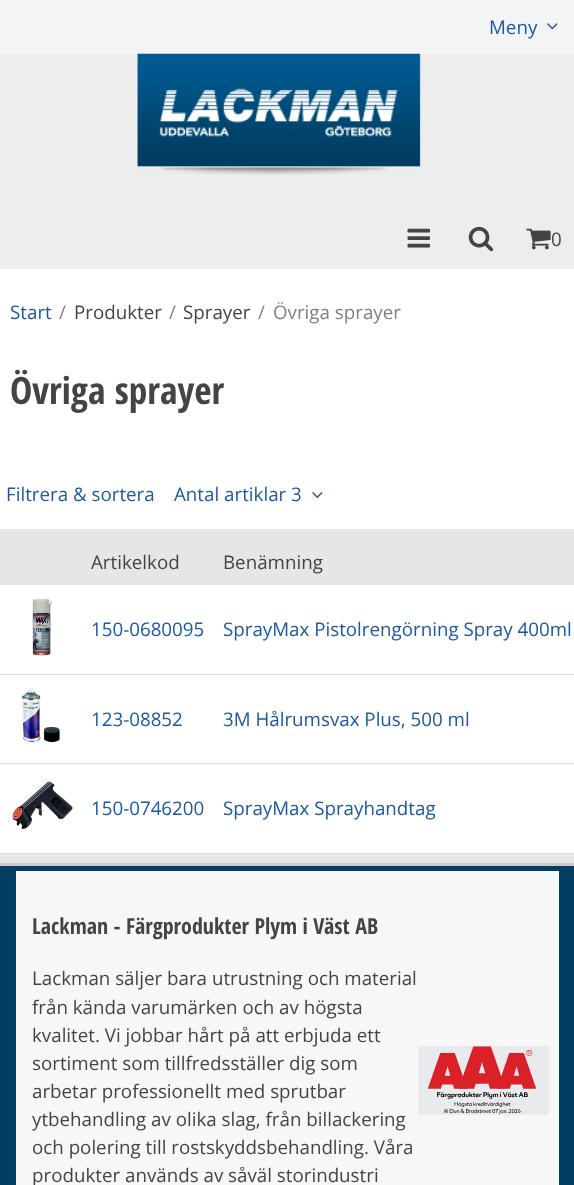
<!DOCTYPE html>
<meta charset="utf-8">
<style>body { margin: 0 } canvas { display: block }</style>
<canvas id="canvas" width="574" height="1185"></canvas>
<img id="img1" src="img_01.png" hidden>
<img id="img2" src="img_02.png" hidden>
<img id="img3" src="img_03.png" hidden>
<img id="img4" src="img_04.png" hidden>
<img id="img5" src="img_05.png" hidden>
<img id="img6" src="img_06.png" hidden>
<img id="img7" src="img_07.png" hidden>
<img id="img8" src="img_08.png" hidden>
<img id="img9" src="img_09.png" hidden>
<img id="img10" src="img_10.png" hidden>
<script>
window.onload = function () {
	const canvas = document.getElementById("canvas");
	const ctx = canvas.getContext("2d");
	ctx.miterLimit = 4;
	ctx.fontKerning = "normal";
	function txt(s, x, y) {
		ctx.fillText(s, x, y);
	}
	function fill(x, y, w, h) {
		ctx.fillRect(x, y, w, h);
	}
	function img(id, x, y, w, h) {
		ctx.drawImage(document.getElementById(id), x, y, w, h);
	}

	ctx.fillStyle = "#FFFFFF";
	fill(0, 0, 574, 1185);
	ctx.fillStyle = "#EDEDED";
	fill(0, 54, 574, 215);
	ctx.fillStyle = "#F3F4F5";
	fill(0, 0, 574, 54);
	img("img1", 547, 23, 11, 7);
	img("img2", 137, 53, 284, 122);
	img("img3", 407, 228, 23, 20);
	img("img4", 468, 226, 26, 26);
	img("img5", 526, 228, 25, 22);
	img("img6", 312, 492, 11, 6);
	ctx.fillStyle = "#E6E6E6";
	fill(0, 529, 574, 334);
	ctx.fillStyle = "#FFFFFF";
	fill(0, 585, 574, 89);
	ctx.fillStyle = "#DDDDDD";
	fill(0, 674, 574, 1);
	img("img7", 10, 598, 42, 60);
	ctx.fillStyle = "#FFFFFF";
	fill(0, 675, 574, 88);
	ctx.fillStyle = "#DDDDDD";
	fill(0, 763, 574, 1);
	img("img8", 22, 687, 38, 56);
	ctx.fillStyle = "#FFFFFF";
	fill(0, 764, 574, 89);
	ctx.fillStyle = "#DDDDDD";
	fill(0, 853, 574, 1);
	img("img9", 10, 781, 63, 56);
	ctx.fillStyle = "#003E64";
	fill(0, 866, 574, 319);
	ctx.fillStyle = "#CCCCCC";
	fill(0, 863, 574, 3);
	ctx.fillStyle = "#F7F7F7";
	fill(16, 871, 543, 314);
	ctx.fillStyle = "#E8EAED";
	fill(418, 1046, 131, 69);
	img("img10", 427, 1046, 110, 69);
	ctx.font = "18.75px Open Sans";
	ctx.fillStyle = "#1B59A4";
	txt("Meny", 489, 34);
	ctx.fillStyle = "#444444";
	txt("0", 551, 246);
	ctx.fillStyle = "#1B59A4";
	txt("Start", 10, 319);
	ctx.fillStyle = "#808080";
	txt("/", 59, 319);
	ctx.fillStyle = "#444444";
	txt("Produkter", 74, 319);
	ctx.fillStyle = "#808080";
	txt("/", 169, 319);
	ctx.fillStyle = "#444444";
	txt("Sprayer", 183, 319);
	ctx.fillStyle = "#808080";
	txt("/", 258, 319);
	txt("Övriga sprayer", 273, 319);
	ctx.font = "bold 37.5px Open Sans Condensed";
	ctx.fillStyle = "#444444";
	txt("Övriga sprayer", 10, 404);
	ctx.font = "18.75px Open Sans";
	ctx.fillStyle = "#1B59A4";
	txt("Filtrera & sortera", 6, 501);
	txt("Antal artiklar 3", 174, 501);
	ctx.fillStyle = "#444444";
	txt("Artikelkod", 91, 569);
	txt("Benämning", 223, 569);
	ctx.fillStyle = "#1B59A4";
	txt("150-0680095", 91, 636);
	txt("SprayMax Pistolrengörning Spray 400ml", 223, 636);
	txt("123-08852", 91, 726);
	txt("3M Hålrumsvax Plus, 500 ml", 223, 726);
	txt("150-0746200", 91, 815);
	txt("SprayMax Sprayhandtag", 223, 815);
	ctx.font = "bold 22px Open Sans Condensed";
	ctx.fillStyle = "#444444";
	txt("Lackman - Färgprodukter Plym i Väst AB", 32, 934);
	ctx.font = "18.75px Open Sans";
	txt("Lackman säljer bara utrustning och material", 32, 985);
	txt("från kända varumärken och av högsta", 32, 1014);
	txt("kvalitet. Vi jobbar hårt på att erbjuda ett", 32, 1042);
	txt("sortiment som tillfredsställer dig som", 32, 1070);
	txt("arbetar professionellt med sprutbar", 32, 1098);
	txt("ytbehandling av olika slag, från billackering", 32, 1126);
	txt("och polering till rostskyddsbehandling. Våra", 32, 1154);
	txt("produkter används av såväl storindustri", 32, 1182);
};
</script>
